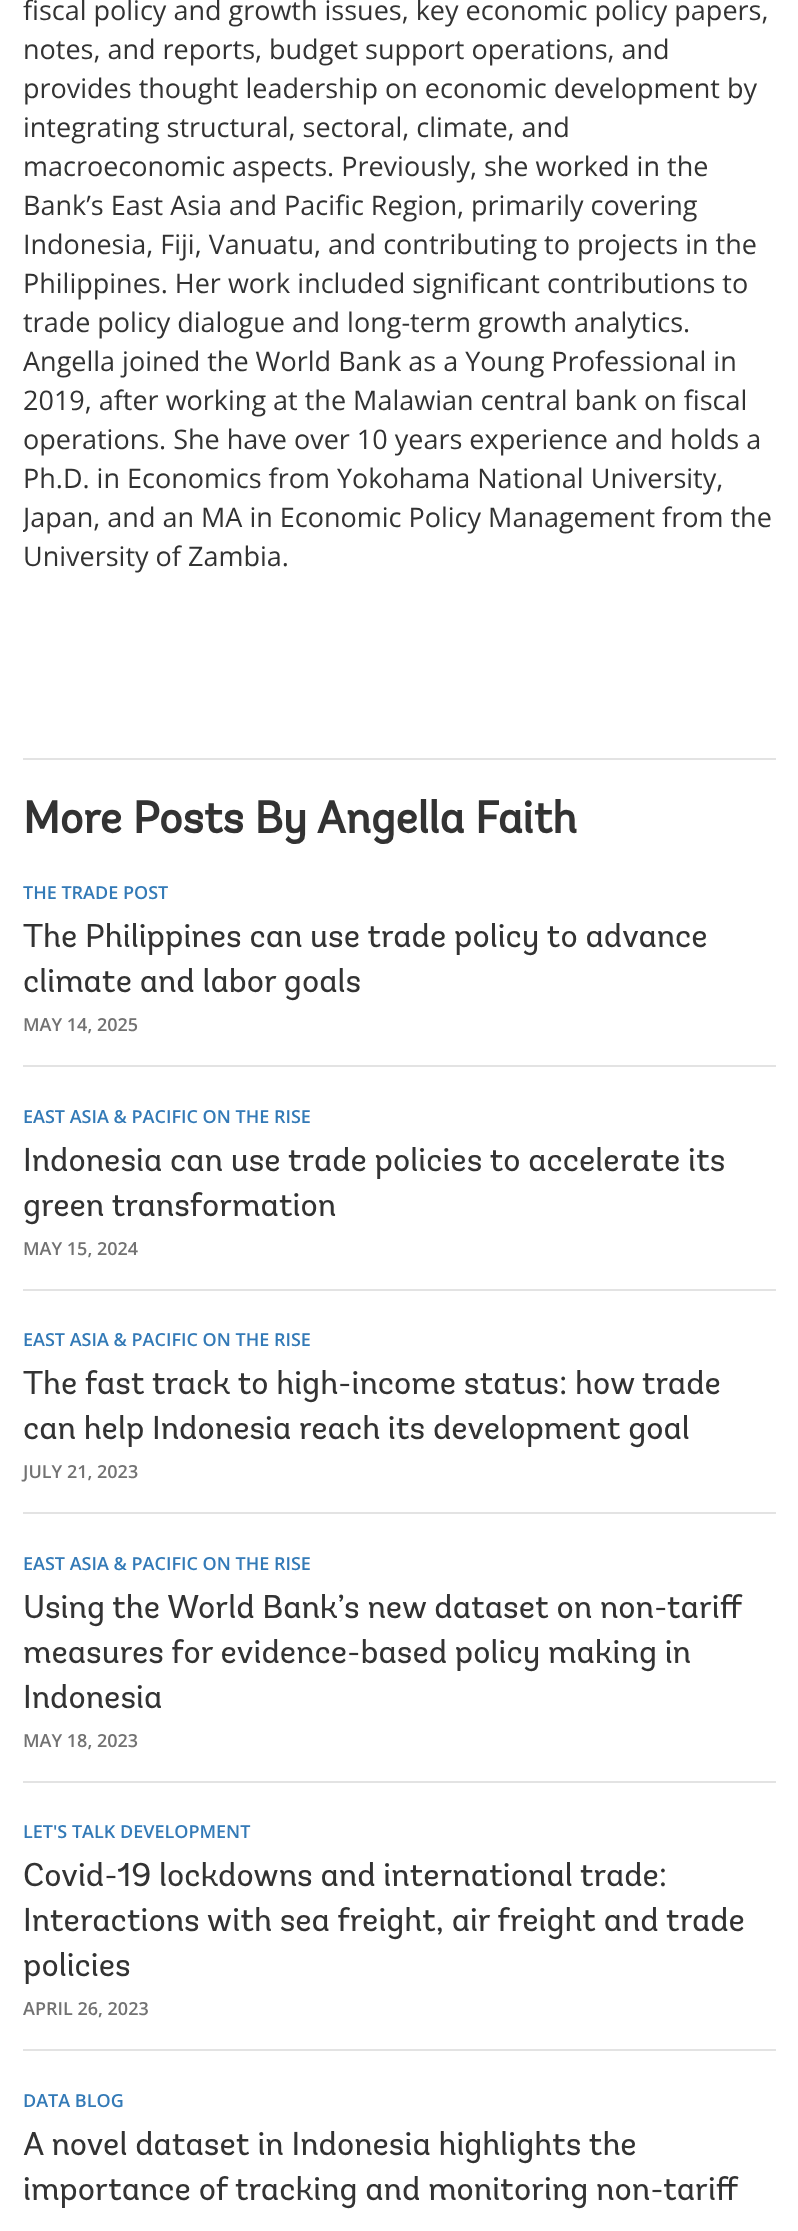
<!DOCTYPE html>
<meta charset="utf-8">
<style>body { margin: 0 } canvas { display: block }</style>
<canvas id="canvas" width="798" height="2231"></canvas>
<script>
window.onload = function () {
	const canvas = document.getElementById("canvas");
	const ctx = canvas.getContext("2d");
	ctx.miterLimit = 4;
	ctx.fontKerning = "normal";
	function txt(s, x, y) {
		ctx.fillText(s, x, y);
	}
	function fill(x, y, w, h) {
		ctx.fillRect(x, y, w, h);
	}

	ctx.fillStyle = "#FFFFFF";
	fill(0, 0, 798, 2231);
	ctx.fillStyle = "#E3E3E3";
	fill(23, 758, 753, 2);
	fill(23, 1065, 753, 2);
	fill(23, 1289, 753, 2);
	fill(23, 1512, 753, 2);
	fill(23, 1781, 753, 2);
	fill(23, 2049, 753, 2);
	ctx.font = "27px Open Sans";
	ctx.fillStyle = "#333333";
	txt("fiscal policy and growth issues, key economic policy papers,", 23, 20);
	txt("notes, and reports, budget support operations, and", 23, 59);
	txt("provides thought leadership on economic development by", 23, 98);
	txt("integrating structural, sectoral, climate, and", 23, 137);
	txt("macroeconomic aspects. Previously, she worked in the", 23, 176);
	txt("Bank’s East Asia and Pacific Region, primarily covering", 23, 215);
	txt("Indonesia, Fiji, Vanuatu, and contributing to projects in the", 23, 254);
	txt("Philippines. Her work included significant contributions to", 23, 293);
	txt("trade policy dialogue and long-term growth analytics.", 23, 332);
	txt("Angella joined the World Bank as a Young Professional in", 23, 371);
	txt("2019, after working at the Malawian central bank on fiscal", 23, 410);
	txt("operations. She have over 10 years experience and holds a", 23, 449);
	txt("Ph.D. in Economics from Yokohama National University,", 23, 488);
	ctx.save();
	ctx.beginPath();
	ctx.rect(23, 0, 753, 645);
	ctx.clip();
	txt("Japan, and an MA in Economic Policy Management from the", 23, 527);
	ctx.restore();
	txt("University of Zambia.", 23, 566);
	ctx.font = "bold 45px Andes";
	txt("More Posts By Angella Faith", 23, 833);
	ctx.font = "600 18px Open Sans";
	ctx.fillStyle = "#337AB7";
	txt("THE TRADE POST", 23, 899);
	ctx.font = "33px Andes";
	ctx.fillStyle = "#333333";
	txt("The Philippines can use trade policy to advance", 23, 947);
	txt("climate and labor goals", 23, 992);
	ctx.font = "600 18px Open Sans";
	ctx.fillStyle = "#727272";
	txt("MAY 14, 2025", 23, 1031);
	ctx.fillStyle = "#337AB7";
	txt("EAST ASIA & PACIFIC ON THE RISE", 23, 1123);
	ctx.font = "33px Andes";
	ctx.fillStyle = "#333333";
	txt("Indonesia can use trade policies to accelerate its", 23, 1171);
	txt("green transformation", 23, 1216);
	ctx.font = "600 18px Open Sans";
	ctx.fillStyle = "#727272";
	txt("MAY 15, 2024", 23, 1255);
	ctx.fillStyle = "#337AB7";
	txt("EAST ASIA & PACIFIC ON THE RISE", 23, 1346);
	ctx.font = "33px Andes";
	ctx.fillStyle = "#333333";
	txt("The fast track to high-income status: how trade", 23, 1394);
	txt("can help Indonesia reach its development goal", 23, 1439);
	ctx.font = "600 18px Open Sans";
	ctx.fillStyle = "#727272";
	txt("JULY 21, 2023", 23, 1478);
	ctx.fillStyle = "#337AB7";
	txt("EAST ASIA & PACIFIC ON THE RISE", 23, 1570);
	ctx.font = "33px Andes";
	ctx.fillStyle = "#333333";
	txt("Using the World Bank’s new dataset on non-tariff", 23, 1618);
	txt("measures for evidence-based policy making in", 23, 1663);
	txt("Indonesia", 23, 1708);
	ctx.font = "600 18px Open Sans";
	ctx.fillStyle = "#727272";
	txt("MAY 18, 2023", 23, 1747);
	ctx.fillStyle = "#337AB7";
	txt("LET'S TALK DEVELOPMENT", 23, 1838);
	ctx.font = "33px Andes";
	ctx.fillStyle = "#333333";
	txt("Covid-19 lockdowns and international trade:", 23, 1886);
	txt("Interactions with sea freight, air freight and trade", 23, 1931);
	txt("policies", 23, 1976);
	ctx.font = "600 18px Open Sans";
	ctx.fillStyle = "#727272";
	txt("APRIL 26, 2023", 23, 2015);
	ctx.fillStyle = "#337AB7";
	txt("DATA BLOG", 23, 2107);
	ctx.font = "33px Andes";
	ctx.fillStyle = "#333333";
	txt("A novel dataset in Indonesia highlights the", 23, 2155);
	txt("importance of tracking and monitoring non-tariff", 23, 2200);
};
</script>
